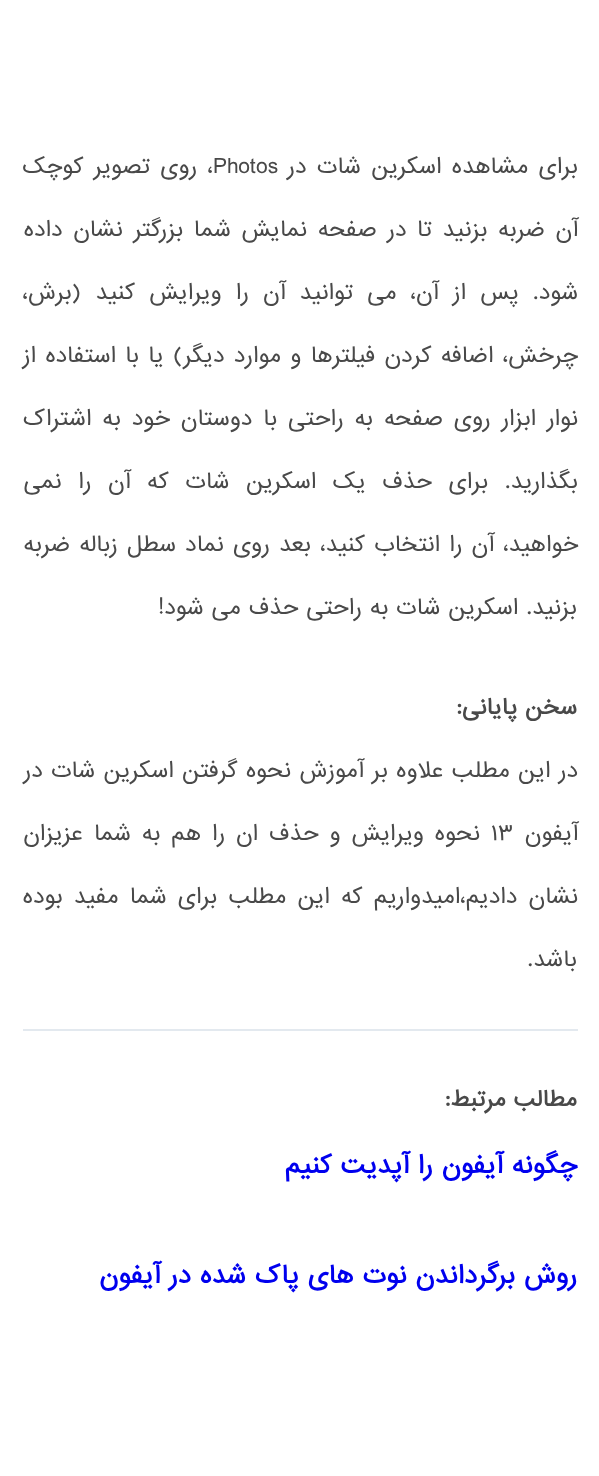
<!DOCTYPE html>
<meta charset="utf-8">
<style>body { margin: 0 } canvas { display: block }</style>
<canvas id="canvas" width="599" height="1476"></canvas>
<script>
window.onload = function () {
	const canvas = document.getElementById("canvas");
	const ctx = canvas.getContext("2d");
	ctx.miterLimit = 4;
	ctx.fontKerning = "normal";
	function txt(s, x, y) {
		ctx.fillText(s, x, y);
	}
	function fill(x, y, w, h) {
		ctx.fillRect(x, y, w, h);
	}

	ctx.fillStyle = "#FFFFFF";
	fill(0, 0, 599, 1476);
	ctx.fillStyle = "#E3E9EF";
	fill(23, 1029, 555, 2);
	ctx.wordSpacing = "2.5px";
	ctx.direction = "rtl";
	ctx.font = "21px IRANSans";
	ctx.fillStyle = "#494949";
	txt("برای مشاهده اسکرین شات در", 578, 173);
	ctx.wordSpacing = "0px";
	ctx.direction = "ltr";
	txt("Photos", 213, 173);
	ctx.wordSpacing = "2.5px";
	ctx.direction = "rtl";
	txt("، روی تصویر کوچک", 213, 173);
	ctx.wordSpacing = "2.75px";
	txt("آن ضربه بزنید تا در صفحه نمایش شما بزرگتر نشان داده", 578, 236);
	ctx.wordSpacing = "6.25px";
	txt("شود. پس از آن، می توانید آن را ویرایش کنید (برش،", 578, 299);
	ctx.wordSpacing = "1.4px";
	txt("چرخش، اضافه کردن فیلترها و موارد دیگر) یا با استفاده از", 578, 362);
	ctx.wordSpacing = "3px";
	txt("نوار ابزار روی صفحه به راحتی با دوستان خود به اشتراک", 578, 425);
	ctx.wordSpacing = "8.75px";
	txt("بگذارید. برای حذف یک اسکرین شات که آن را نمی", 578, 488);
	ctx.wordSpacing = "1.25px";
	txt("خواهید، آن را انتخاب کنید، بعد روی نماد سطل زباله ضربه", 578, 551);
	ctx.wordSpacing = "0px";
	txt("بزنید. اسکرین شات به راحتی حذف می شود!", 577, 614);
	ctx.font = "bold 21px IRANSans";
	txt("سخن پایانی:", 577, 714);
	ctx.wordSpacing = "0.5px";
	ctx.font = "21px IRANSans";
	txt("در این مطلب علاوه بر آموزش نحوه گرفتن اسکرین شات در", 578, 777);
	ctx.wordSpacing = "0px";
	txt("آیفون", 578, 840);
	ctx.direction = "ltr";
	txt("13", 491, 840);
	ctx.wordSpacing = "3px";
	ctx.direction = "rtl";
	txt("نحوه ویرایش و حذف ان را هم به شما عزیزان", 480, 840);
	ctx.wordSpacing = "3.25px";
	txt("نشان دادیم،امیدواریم که این مطلب برای شما مفید بوده", 578, 903);
	ctx.wordSpacing = "0px";
	txt("باشد.", 577, 966);
	ctx.font = "bold 21px IRANSans";
	txt("مطالب مرتبط:", 577, 1106);
	ctx.font = "bold 24px IRANSans";
	ctx.fillStyle = "#0000EE";
	txt("چگونه آیفون را آپدیت کنیم", 577, 1173);
	txt("روش برگرداندن نوت های پاک شده در آیفون", 577, 1283);
};
</script>
